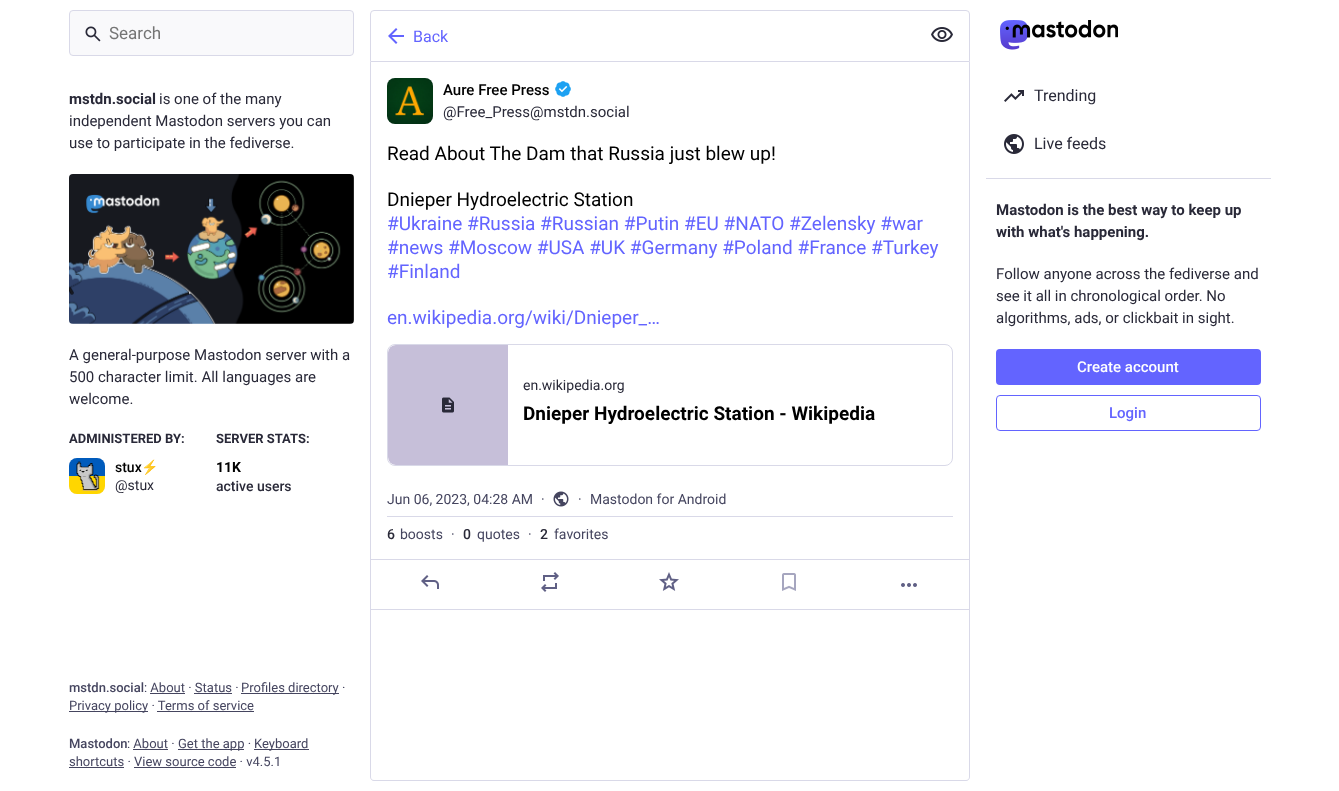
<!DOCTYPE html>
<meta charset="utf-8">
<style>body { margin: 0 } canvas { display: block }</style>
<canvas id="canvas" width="1339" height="791"></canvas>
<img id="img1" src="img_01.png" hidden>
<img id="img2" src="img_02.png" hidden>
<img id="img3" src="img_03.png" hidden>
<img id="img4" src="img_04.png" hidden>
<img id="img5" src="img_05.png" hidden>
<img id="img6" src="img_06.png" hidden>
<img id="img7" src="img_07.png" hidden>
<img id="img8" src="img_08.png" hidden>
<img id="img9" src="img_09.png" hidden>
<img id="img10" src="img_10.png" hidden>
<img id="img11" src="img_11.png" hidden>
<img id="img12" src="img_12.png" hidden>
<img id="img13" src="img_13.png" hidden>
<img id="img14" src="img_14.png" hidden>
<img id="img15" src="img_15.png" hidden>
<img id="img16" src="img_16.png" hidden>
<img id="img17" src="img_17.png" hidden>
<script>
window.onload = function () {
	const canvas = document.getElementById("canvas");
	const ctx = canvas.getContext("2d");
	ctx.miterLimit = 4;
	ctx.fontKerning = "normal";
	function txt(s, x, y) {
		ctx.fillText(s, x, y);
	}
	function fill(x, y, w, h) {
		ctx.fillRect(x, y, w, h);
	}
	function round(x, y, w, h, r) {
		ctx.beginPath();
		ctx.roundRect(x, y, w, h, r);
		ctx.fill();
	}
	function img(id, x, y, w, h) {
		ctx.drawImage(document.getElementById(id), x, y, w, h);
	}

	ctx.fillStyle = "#FFFFFF";
	fill(0, 0, 1339, 791);
	ctx.fillStyle = "#F9F9FB";
	ctx.beginPath();
	ctx.roundRect(69.5, 10.5, 284, 45, 3.5);
	ctx.fill();
	ctx.strokeStyle = "#D9D9E8";
	ctx.stroke();
	img("img1", 85, 26, 16, 16);
	img("img2", 69, 174, 285, 150);
	ctx.fillStyle = "#E8E6F0";
	round(69, 458, 36, 36, 8);
	img("img3", 69, 458, 36, 36);
	ctx.fillStyle = "#45455F";
	fill(241, 693, 98, 1);
	fill(150, 693, 35, 1);
	fill(194, 693, 38, 1);
	fill(69, 711, 79, 1);
	fill(157, 711, 97, 1);
	fill(178, 749, 66, 1);
	fill(254, 749, 55, 1);
	fill(133, 749, 35, 1);
	fill(69, 767, 55, 1);
	fill(134, 767, 102, 1);
	ctx.beginPath();
	ctx.roundRect(370.5, 10.5, 599, 51, [3.5, 3.5, 0, 0]);
	ctx.stroke();
	img("img4", 388, 28, 16, 16);
	img("img5", 931, 27, 22, 15);
	ctx.fillStyle = "#D9D9E8";
	ctx.beginPath();
	ctx.moveTo(370, 62);
	ctx.lineTo(970, 62);
	ctx.lineTo(970, 777);
	ctx.bezierCurveTo(970, 779, 968, 781, 966, 781);
	ctx.lineTo(374, 781);
	ctx.bezierCurveTo(372, 781, 370, 779, 370, 777);
	ctx.closePath();
	ctx.moveTo(371, 62);
	ctx.lineTo(969, 62);
	ctx.lineTo(969, 777);
	ctx.bezierCurveTo(969, 779, 968, 780, 966, 780);
	ctx.lineTo(374, 780);
	ctx.bezierCurveTo(372, 780, 371, 779, 371, 777);
	ctx.closePath();
	ctx.fill("evenodd");
	ctx.fillStyle = "#E8E6F0";
	round(387, 78, 46, 46, 8);
	img("img6", 387, 78, 46, 46);
	img("img7", 555, 81, 16, 16);
	ctx.beginPath();
	ctx.roundRect(387.5, 344.5, 565, 121, 7.5);
	ctx.stroke();
	ctx.save();
	ctx.beginPath();
	ctx.roundRect(388, 345, 564, 120, 7);
	ctx.clip();
	ctx.fillStyle = "#C6BFD9";
	ctx.beginPath();
	ctx.roundRect(388, 345, 120, 120, [8, 0, 0, 8]);
	ctx.fill();
	ctx.restore();
	img("img8", 442, 397, 12, 16);
	ctx.fillStyle = "#D9D9E8";
	fill(387, 516, 566, 1);
	img("img9", 553, 491, 16, 16);
	fill(371, 559, 598, 1);
	fill(371, 609, 598, 1);
	img("img10", 421, 575, 18, 14);
	img("img11", 541, 572, 18, 20);
	img("img12", 659, 572, 20, 19);
	img("img13", 782, 573, 14, 18);
	img("img14", 901, 583, 16, 4);
	img("img15", 1000, 20, 118, 30);
	img("img16", 1004, 90, 20, 12);
	img("img17", 1004, 134, 20, 20);
	fill(986, 178, 285, 1);
	ctx.fillStyle = "#6364FF";
	round(996, 349, 265, 36, 4);
	ctx.beginPath();
	ctx.roundRect(996.5, 395.5, 264, 35, 3.5);
	ctx.strokeStyle = "#6364FF";
	ctx.stroke();
	ctx.font = "17px Roboto";
	ctx.fillStyle = "#757575";
	txt("Search", 109, 39);
	ctx.font = "bold 15px Roboto";
	ctx.fillStyle = "#292938";
	txt("mstdn.social", 69, 104);
	ctx.font = "15px Roboto";
	txt("is one of the many", 159, 104);
	txt("independent Mastodon servers you can", 69, 126);
	txt("use to participate in the fediverse.", 69, 148);
	txt("A general-purpose Mastodon server with a", 69, 360);
	txt("500 character limit. All languages are", 69, 382);
	txt("welcome.", 69, 404);
	ctx.font = "bold 13px Roboto";
	txt("ADMINISTERED BY:", 69, 443);
	ctx.font = "500 14px Roboto";
	ctx.fillStyle = "#000000";
	txt("stux", 115, 472);
	ctx.font = "14px Noto Color Emoji";
	txt("⚡", 141, 472);
	ctx.font = "14px Roboto";
	ctx.fillStyle = "#292938";
	txt("@stux", 115, 490);
	ctx.font = "bold 13px Roboto";
	txt("SERVER STATS:", 216, 443);
	ctx.font = "bold 14px Roboto";
	ctx.fillStyle = "#000000";
	txt("11K", 216, 472);
	ctx.font = "500 14px Roboto";
	ctx.fillStyle = "#292938";
	txt("active users", 216, 491);
	ctx.font = "500 13px Roboto";
	ctx.fillStyle = "#45455F";
	txt("mstdn.social", 69, 692);
	ctx.font = "13px Roboto";
	txt(": About · Status ·", 144, 692);
	txt("Profiles directory ·", 241, 692);
	txt("Privacy policy · Terms of service", 69, 710);
	ctx.font = "500 13px Roboto";
	txt("Mastodon", 69, 748);
	ctx.font = "13px Roboto";
	txt(": About ·", 127, 748);
	txt("Get the app ·", 178, 748);
	txt("Keyboard", 254, 748);
	txt("shortcuts · View source code · v4.5.1", 69, 766);
	ctx.font = "16px Roboto";
	ctx.fillStyle = "#6364FF";
	txt("Back", 413, 42);
	ctx.font = "500 15px Roboto";
	ctx.fillStyle = "#000000";
	txt("Aure Free Press", 443, 95);
	ctx.font = "15px Roboto";
	ctx.fillStyle = "#292938";
	txt("@Free_Press@mstdn.social", 443, 117);
	ctx.font = "19px Roboto";
	ctx.fillStyle = "#000000";
	txt("Read About The Dam that Russia just blew up!", 387, 160);
	txt("Dnieper Hydroelectric Station", 387, 206);
	ctx.fillStyle = "#6364FF";
	txt("#Ukraine️ #Russia #Russian #Putin #EU #NATO #Zelensky #war", 387, 230);
	txt("#news #Moscow #USA #UK #Germany #Poland #France #Turkey", 387, 254);
	txt("#Finland", 387, 278);
	txt("en.wikipedia.org/wiki/Dnieper_…", 387, 324);
	ctx.font = "14px Roboto";
	ctx.fillStyle = "#292938";
	txt("en.wikipedia.org", 523, 390);
	ctx.font = "bold 19px Roboto";
	ctx.fillStyle = "#000000";
	txt("Dnieper Hydroelectric Station - Wikipedia", 523, 420);
	ctx.font = "14px Roboto";
	ctx.fillStyle = "#45455F";
	txt("Jun 06, 2023, 04:28 AM", 387, 504);
	txt("·", 541, 504);
	txt("·", 578, 504);
	txt("Mastodon for Android", 590, 504);
	ctx.font = "500 14px Roboto";
	ctx.fillStyle = "#292938";
	txt("6", 387, 539);
	ctx.font = "14px Roboto";
	ctx.fillStyle = "#45455F";
	txt("boosts", 400, 539);
	txt("·", 451, 539);
	ctx.font = "500 14px Roboto";
	ctx.fillStyle = "#292938";
	txt("0", 463, 539);
	ctx.font = "14px Roboto";
	ctx.fillStyle = "#45455F";
	txt("quotes", 477, 539);
	txt("·", 528, 539);
	ctx.font = "500 14px Roboto";
	ctx.fillStyle = "#292938";
	txt("2", 540, 539);
	ctx.font = "14px Roboto";
	ctx.fillStyle = "#45455F";
	txt("favorites", 554, 539);
	ctx.font = "16px Roboto";
	ctx.fillStyle = "#292938";
	txt("Trending", 1034, 101);
	txt("Live feeds", 1034, 149);
	ctx.font = "bold 15px Roboto";
	txt("Mastodon is the best way to keep up", 996, 215);
	txt("with what's happening.", 996, 237);
	ctx.font = "15px Roboto";
	txt("Follow anyone across the fediverse and", 996, 279);
	txt("see it all in chronological order. No", 996, 301);
	txt("algorithms, ads, or clickbait in sight.", 996, 323);
	ctx.font = "500 15px Roboto";
	ctx.fillStyle = "#FFFFFF";
	txt("Create account", 1077, 372);
	ctx.fillStyle = "#6364FF";
	txt("Login", 1109, 418);
};
</script>
